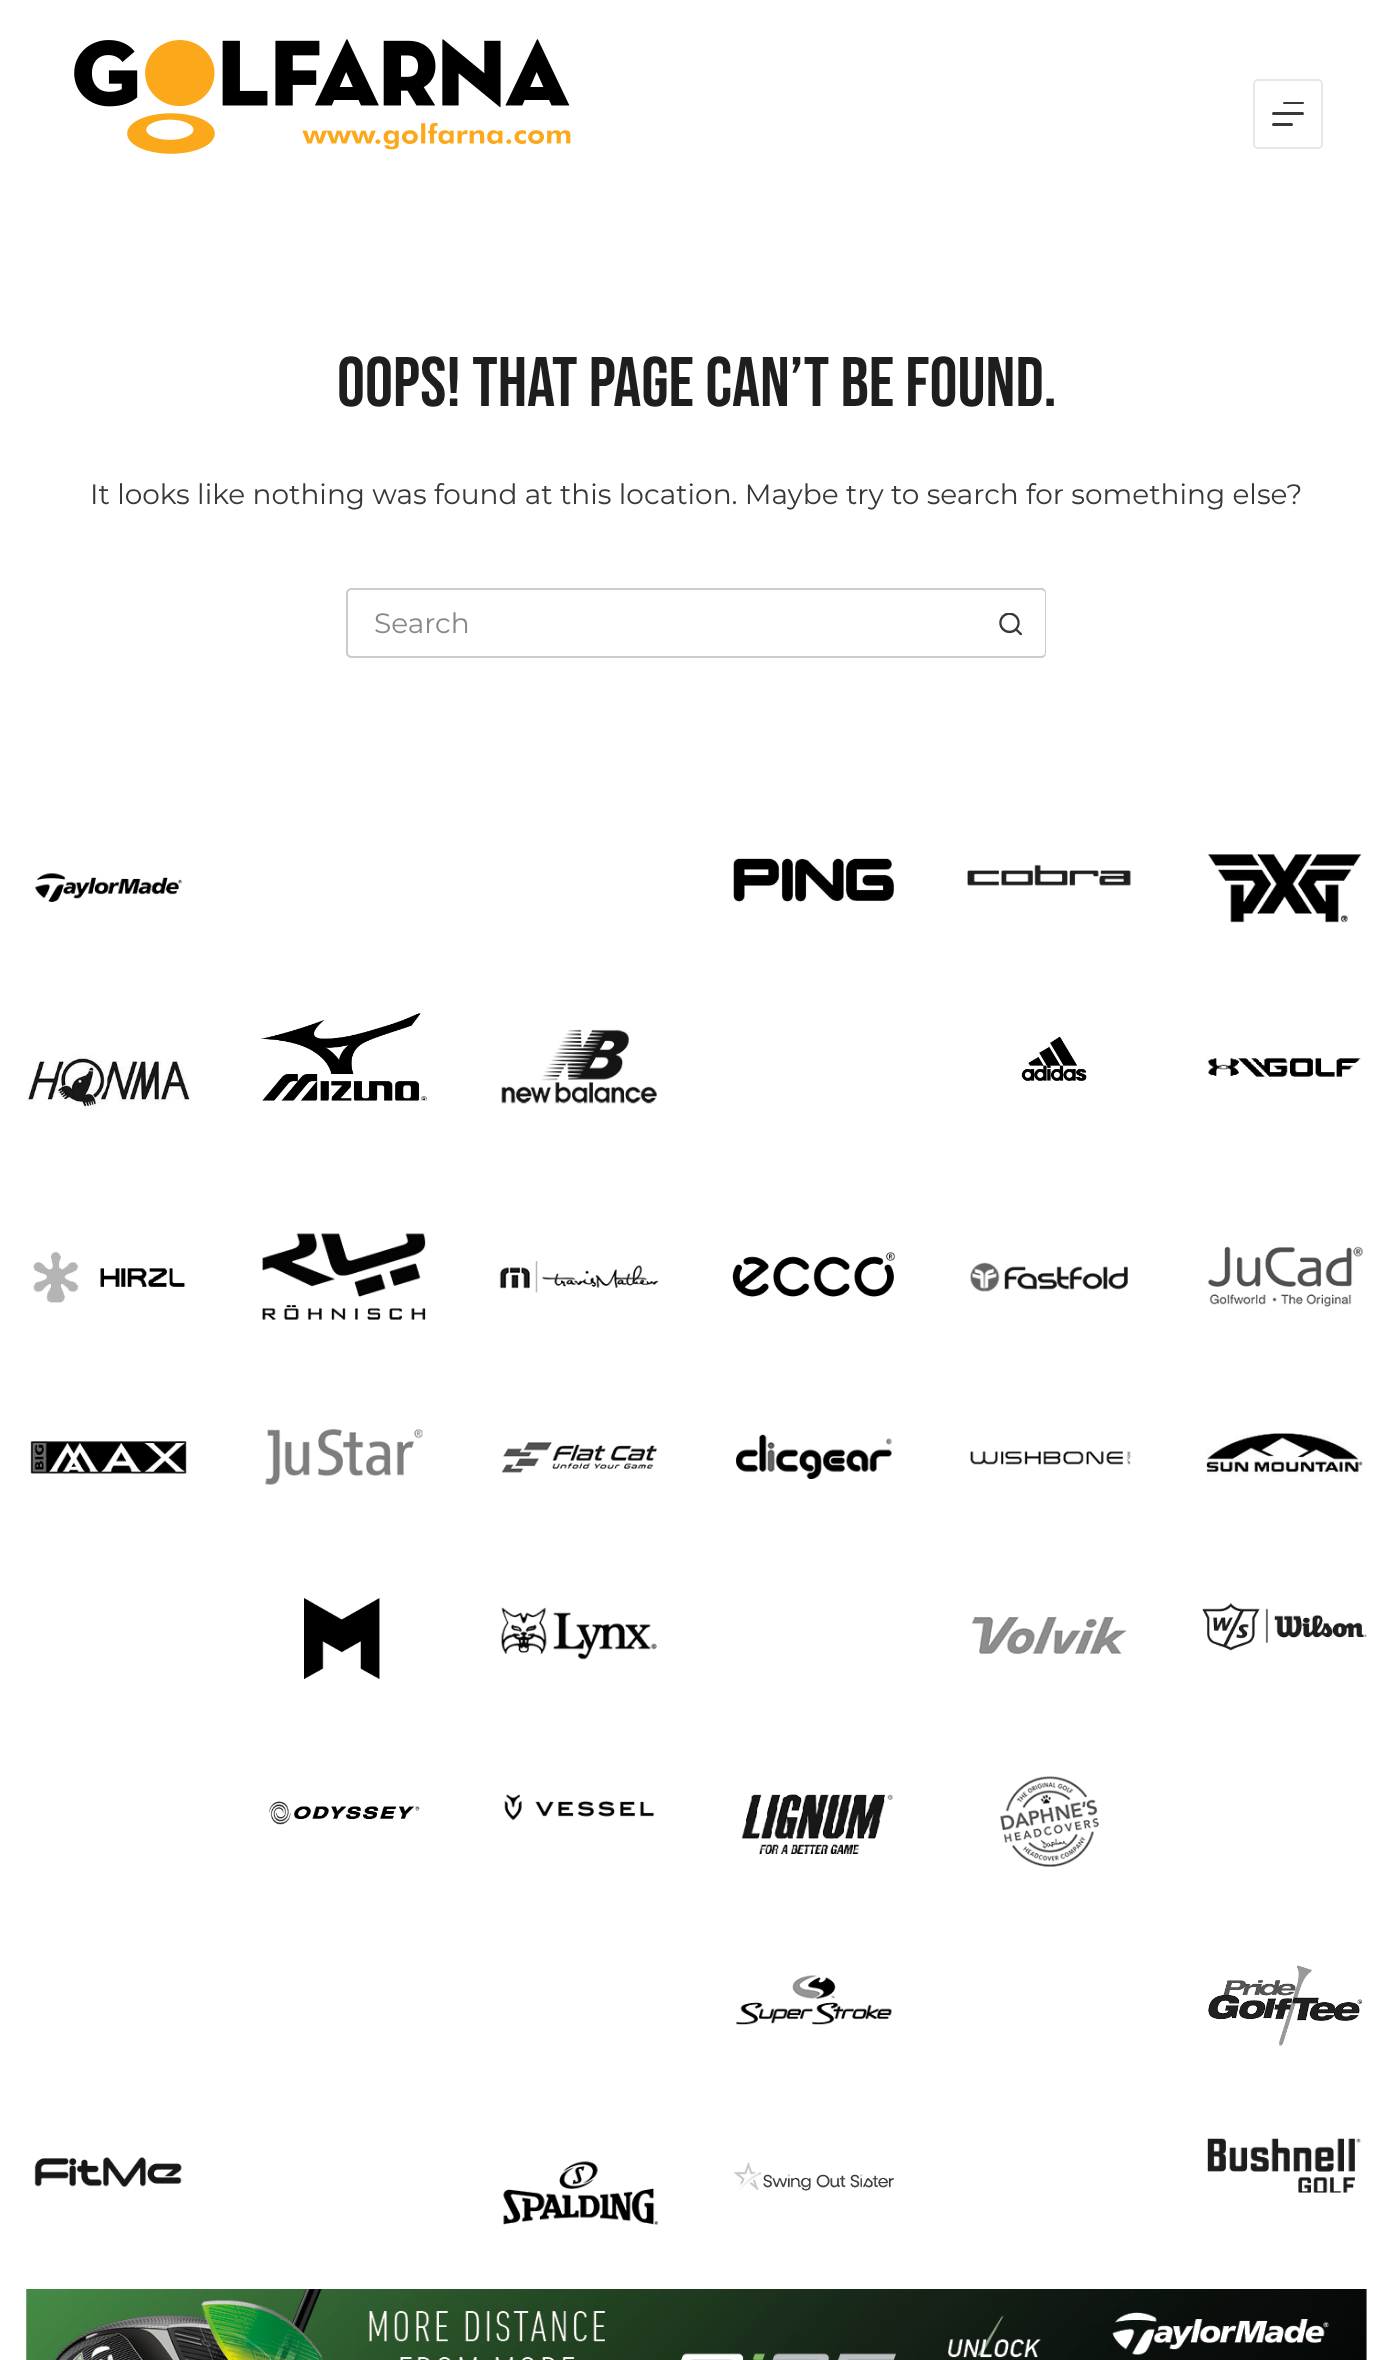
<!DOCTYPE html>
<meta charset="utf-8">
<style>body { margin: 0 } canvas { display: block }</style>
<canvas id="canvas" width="1392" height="2360"></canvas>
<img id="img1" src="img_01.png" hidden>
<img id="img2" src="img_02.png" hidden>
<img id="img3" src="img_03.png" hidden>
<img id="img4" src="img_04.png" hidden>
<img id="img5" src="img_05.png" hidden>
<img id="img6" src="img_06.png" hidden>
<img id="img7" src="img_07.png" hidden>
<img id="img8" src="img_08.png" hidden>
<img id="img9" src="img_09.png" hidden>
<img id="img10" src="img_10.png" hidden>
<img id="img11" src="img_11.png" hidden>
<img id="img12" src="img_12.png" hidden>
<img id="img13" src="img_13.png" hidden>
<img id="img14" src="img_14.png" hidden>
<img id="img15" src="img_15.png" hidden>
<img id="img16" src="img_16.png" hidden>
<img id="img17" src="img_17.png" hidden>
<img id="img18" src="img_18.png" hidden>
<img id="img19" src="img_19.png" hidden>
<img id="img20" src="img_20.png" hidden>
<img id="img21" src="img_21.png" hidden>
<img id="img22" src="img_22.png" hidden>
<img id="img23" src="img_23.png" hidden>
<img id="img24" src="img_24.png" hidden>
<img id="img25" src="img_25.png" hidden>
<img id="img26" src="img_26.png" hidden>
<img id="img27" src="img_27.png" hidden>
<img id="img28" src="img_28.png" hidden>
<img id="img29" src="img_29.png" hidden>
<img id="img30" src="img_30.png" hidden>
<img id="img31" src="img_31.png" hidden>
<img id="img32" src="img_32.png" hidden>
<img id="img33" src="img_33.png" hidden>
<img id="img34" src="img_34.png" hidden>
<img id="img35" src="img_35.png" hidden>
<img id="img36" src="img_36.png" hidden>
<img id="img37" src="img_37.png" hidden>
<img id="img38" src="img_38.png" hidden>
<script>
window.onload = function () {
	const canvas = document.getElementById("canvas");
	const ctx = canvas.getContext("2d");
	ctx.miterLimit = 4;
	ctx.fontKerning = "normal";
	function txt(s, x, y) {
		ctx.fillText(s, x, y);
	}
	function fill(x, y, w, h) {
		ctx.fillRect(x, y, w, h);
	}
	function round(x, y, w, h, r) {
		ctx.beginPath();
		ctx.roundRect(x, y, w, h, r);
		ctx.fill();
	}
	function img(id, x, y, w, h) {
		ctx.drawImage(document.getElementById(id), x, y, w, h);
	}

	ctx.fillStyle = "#FFFFFF";
	fill(0, 0, 1392, 2360);
	img("img1", 74, 39, 497, 115);
	ctx.beginPath();
	ctx.roundRect(1254, 80, 68, 68, 4);
	ctx.strokeStyle = "#E3E8ED";
	ctx.lineWidth = 2;
	ctx.stroke();
	ctx.fillStyle = "#383838";
	round(1283, 102, 21, 2, 1);
	round(1272, 112, 32, 3, 1.5);
	round(1272, 123, 21, 3, 1.5);
	ctx.fillStyle = "#CCCCCC";
	ctx.beginPath();
	ctx.moveTo(352, 588);
	ctx.lineTo(976, 588);
	ctx.lineTo(976, 658);
	ctx.lineTo(352, 658);
	ctx.bezierCurveTo(349, 658, 346, 656, 346, 653);
	ctx.lineTo(346, 593);
	ctx.bezierCurveTo(346, 590, 349, 588, 352, 588);
	ctx.closePath();
	ctx.moveTo(352, 590);
	ctx.lineTo(976, 590);
	ctx.lineTo(976, 656);
	ctx.lineTo(352, 656);
	ctx.bezierCurveTo(350, 656, 348, 655, 348, 653);
	ctx.lineTo(348, 593);
	ctx.bezierCurveTo(348, 591, 350, 590, 352, 590);
	ctx.closePath();
	ctx.fill("evenodd");
	ctx.beginPath();
	ctx.moveTo(976, 588);
	ctx.lineTo(1041, 588);
	ctx.bezierCurveTo(1044, 588, 1046, 590, 1046, 593);
	ctx.lineTo(1046, 653);
	ctx.bezierCurveTo(1046, 656, 1044, 658, 1041, 658);
	ctx.lineTo(976, 658);
	ctx.closePath();
	ctx.moveTo(976, 590);
	ctx.lineTo(1041, 590);
	ctx.bezierCurveTo(1043, 590, 1045, 591, 1045, 593);
	ctx.lineTo(1045, 653);
	ctx.bezierCurveTo(1045, 655, 1043, 656, 1041, 656);
	ctx.lineTo(976, 656);
	ctx.closePath();
	ctx.fill("evenodd");
	img("img2", 999, 613, 23, 22);
	img("img3", 35, 873, 147, 29);
	img("img4", 733, 858, 161, 44);
	img("img5", 967, 864, 164, 22);
	img("img6", 1207, 854, 155, 69);
	img("img7", 26, 1055, 165, 55);
	img("img8", 261, 1013, 166, 88);
	img("img9", 501, 1029, 156, 75);
	img("img10", 1021, 1036, 66, 45);
	img("img11", 1207, 1057, 154, 20);
	img("img12", 33, 1251, 153, 52);
	img("img13", 262, 1233, 164, 87);
	img("img14", 499, 1261, 160, 32);
	img("img15", 732, 1252, 164, 45);
	img("img16", 970, 1262, 158, 30);
	img("img17", 1207, 1246, 157, 61);
	img("img18", 30, 1441, 157, 33);
	img("img19", 265, 1429, 158, 56);
	img("img20", 501, 1442, 156, 31);
	img("img21", 736, 1434, 156, 45);
	img("img22", 970, 1451, 161, 14);
	img("img23", 1206, 1433, 157, 43);
	img("img24", 304, 1598, 76, 82);
	img("img25", 501, 1607, 156, 53);
	img("img26", 971, 1616, 156, 39);
	img("img27", 1202, 1603, 165, 48);
	img("img28", 268, 1801, 152, 24);
	img("img29", 504, 1794, 151, 27);
	img("img30", 741, 1794, 153, 60);
	img("img31", 1000, 1776, 99, 91);
	img("img32", 736, 1975, 156, 50);
	img("img33", 1208, 1965, 155, 81);
	img("img34", 34, 2157, 148, 31);
	img("img35", 503, 2161, 155, 64);
	img("img36", 733, 2162, 161, 29);
	img("img37", 1207, 2138, 154, 55);
	img("img38", 26, 2289, 1341, 71);
	ctx.font = "70px Bebas Neue";
	ctx.fillStyle = "#1E1E1E";
	txt("OOPS! THAT PAGE CAN’T BE FOUND.", 337, 406);
	ctx.font = "28px Montserrat";
	ctx.fillStyle = "#383838";
	txt("It looks like nothing was found at this location. Maybe try to search for something else?", 90, 504);
	ctx.fillStyle = "#888888";
	txt("Search", 374, 633);
};
</script>
